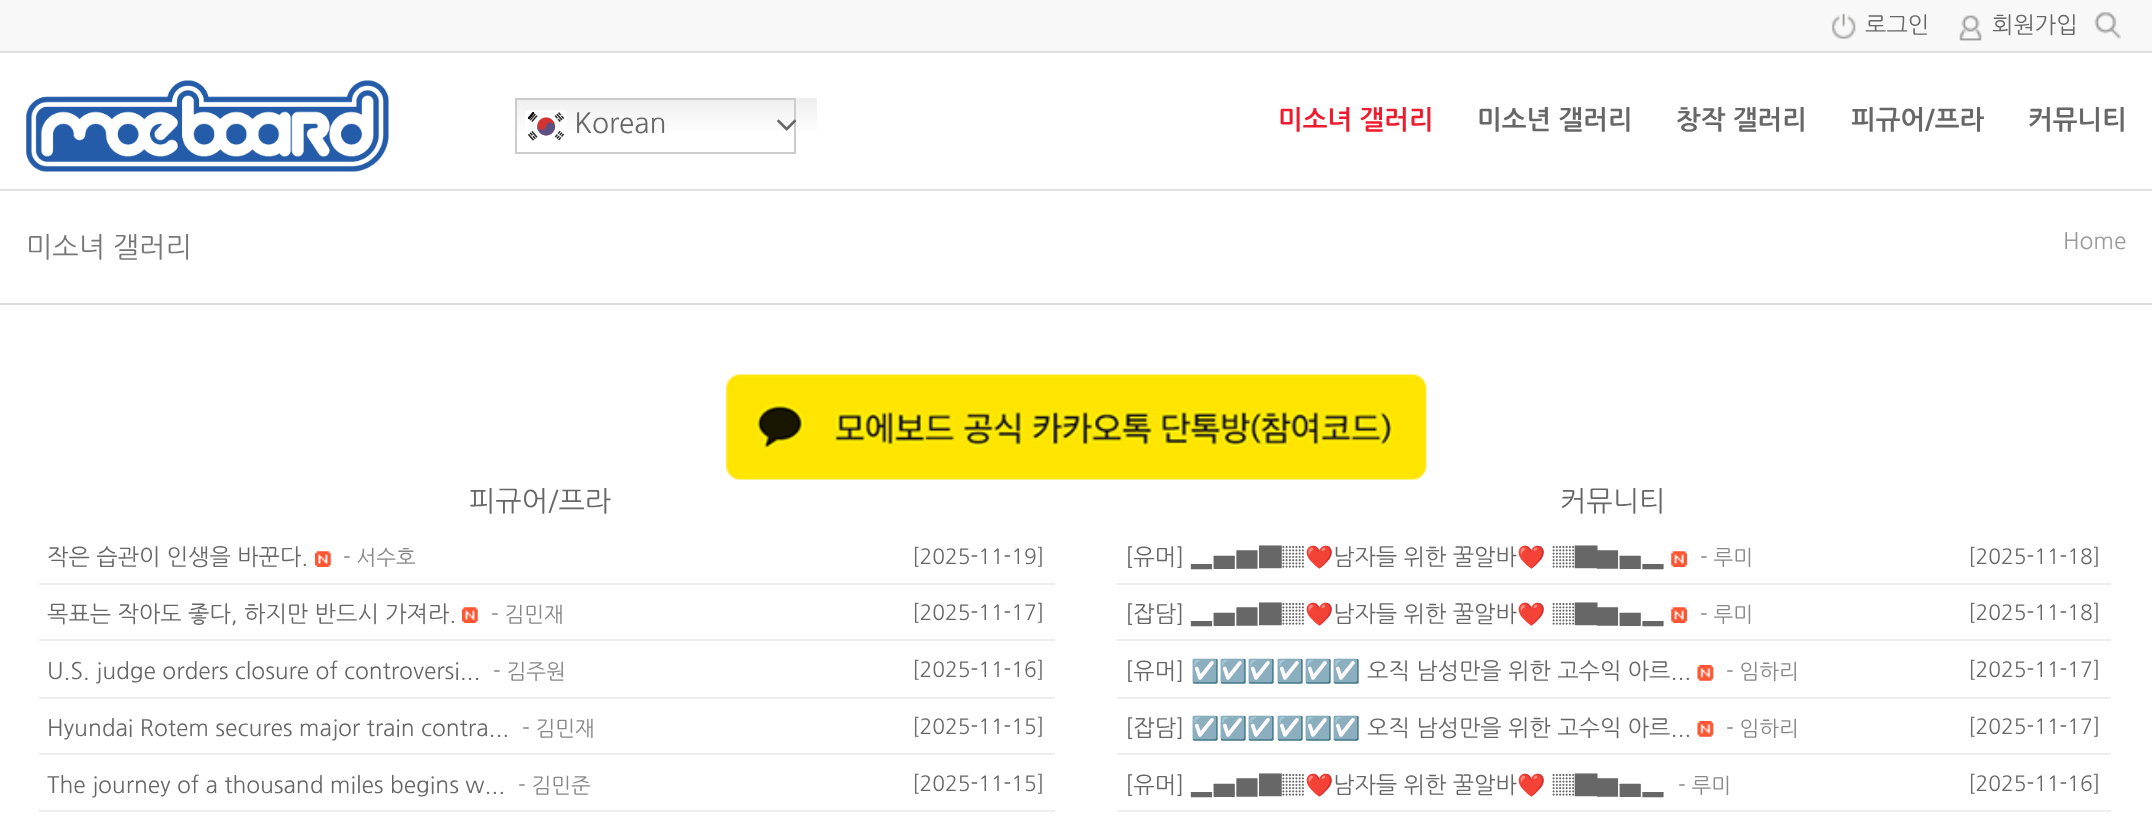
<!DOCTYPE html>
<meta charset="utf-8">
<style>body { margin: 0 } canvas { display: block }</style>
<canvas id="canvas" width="2152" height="826"></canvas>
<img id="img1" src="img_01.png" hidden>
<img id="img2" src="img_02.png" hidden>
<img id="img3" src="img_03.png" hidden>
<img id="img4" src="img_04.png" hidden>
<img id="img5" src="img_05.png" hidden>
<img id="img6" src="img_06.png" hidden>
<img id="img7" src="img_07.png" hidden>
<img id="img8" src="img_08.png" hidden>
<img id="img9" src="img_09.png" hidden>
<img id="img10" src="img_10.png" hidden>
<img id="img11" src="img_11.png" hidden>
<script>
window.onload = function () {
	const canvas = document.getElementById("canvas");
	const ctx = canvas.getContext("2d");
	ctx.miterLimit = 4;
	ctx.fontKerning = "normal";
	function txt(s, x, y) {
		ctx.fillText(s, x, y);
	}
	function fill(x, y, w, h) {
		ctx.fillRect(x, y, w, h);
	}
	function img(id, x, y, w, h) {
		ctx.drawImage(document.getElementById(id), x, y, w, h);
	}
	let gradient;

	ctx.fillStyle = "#FFFFFF";
	fill(0, 0, 2152, 826);
	ctx.fillStyle = "#F8F8F8";
	fill(0, 0, 2152, 51);
	ctx.fillStyle = "#E1E1E1";
	fill(0, 51, 2152, 2);
	img("img1", 1831, 13, 25, 26);
	img("img2", 1959, 15, 23, 26);
	img("img3", 2094, 11, 27, 28);
	fill(0, 189, 2152, 2);
	img("img4", 26, 80, 363, 92);
	gradient = ctx.createLinearGradient(666, 98, 666, 154);
	gradient.addColorStop(0, "#EFEFEF");
	gradient.addColorStop(0.7, "#FFFFFF");
	ctx.fillStyle = gradient;
	fill(517, 98, 300, 33);
	ctx.strokeStyle = "#CCCCCC";
	ctx.lineWidth = 2;
	ctx.strokeRect(516, 99, 279, 54);
	img("img5", 525, 110, 42, 31);
	img("img6", 777, 119, 19, 12);
	ctx.fillStyle = "#DDDDDD";
	fill(0, 303, 2152, 2);
	img("img7", 726, 374, 701, 106);
	img("img8", 315, 551, 16, 16);
	ctx.fillStyle = "#EEEEEE";
	fill(39, 583, 1016, 2);
	img("img9", 462, 607, 16, 16);
	fill(39, 639, 1016, 2);
	fill(39, 697, 1016, 2);
	fill(39, 753, 1016, 2);
	fill(39, 810, 1016, 2);
	img("img10", 1671, 551, 16, 16);
	fill(1117, 583, 994, 2);
	img("img10", 1671, 607, 16, 16);
	fill(1117, 639, 994, 2);
	img("img11", 1697, 665, 17, 16);
	fill(1117, 697, 994, 2);
	img("img11", 1697, 721, 17, 16);
	fill(1117, 753, 994, 2);
	fill(1117, 810, 994, 2);
	ctx.font = "22.75px NanumGothic";
	ctx.fillStyle = "#676767";
	txt("로그인", 1865, 33);
	txt("회원가입", 1992, 33);
	ctx.font = "28px NanumGothic";
	txt("Korean", 574, 133);
	ctx.font = "bold 26.25px NanumGothic";
	ctx.fillStyle = "#ED1C2E";
	txt("미소녀 갤러리", 1278, 129);
	ctx.fillStyle = "#676767";
	txt("미소년 갤러리", 1477, 129);
	txt("창작 갤러리", 1676, 129);
	txt("피규어/프라", 1851, 129);
	txt("커뮤니티", 2028, 129);
	ctx.font = "28px NanumGothic";
	ctx.fillStyle = "#777777";
	txt("미소녀 갤러리", 26, 257);
	ctx.font = "22.75px NanumGothic";
	ctx.fillStyle = "#999999";
	txt("Home", 2063, 249);
	ctx.font = "28px NanumGothic";
	ctx.fillStyle = "#676767";
	txt("피규어/프라", 469, 511);
	ctx.font = "22.75px NanumGothic";
	txt("작은 습관이 인생을 바꾼다.", 47, 565);
	ctx.font = "21px NanumGothic";
	ctx.fillStyle = "#888888";
	txt("- 서수호", 343, 565);
	ctx.fillStyle = "#676767";
	txt("[2025-11-19]", 912, 564);
	ctx.font = "22.75px NanumGothic";
	txt("목표는 작아도 좋다, 하지만 반드시 가져라.", 47, 622);
	ctx.font = "21px NanumGothic";
	ctx.fillStyle = "#888888";
	txt("- 김민재", 491, 622);
	ctx.fillStyle = "#676767";
	txt("[2025-11-17]", 912, 620);
	ctx.font = "22.75px NanumGothic";
	txt("U.S. judge orders closure of controversi...", 47, 679);
	ctx.font = "21px NanumGothic";
	ctx.fillStyle = "#888888";
	txt("- 김주원", 493, 679);
	ctx.fillStyle = "#676767";
	txt("[2025-11-16]", 912, 677);
	ctx.font = "22.75px NanumGothic";
	txt("Hyundai Rotem secures major train contra...", 47, 736);
	ctx.font = "21px NanumGothic";
	ctx.fillStyle = "#888888";
	txt("- 김민재", 522, 736);
	ctx.fillStyle = "#676767";
	txt("[2025-11-15]", 912, 734);
	ctx.font = "22.75px NanumGothic";
	txt("The journey of a thousand miles begins w...", 47, 793);
	ctx.font = "21px NanumGothic";
	ctx.fillStyle = "#888888";
	txt("- 김민준", 518, 793);
	ctx.fillStyle = "#676767";
	txt("[2025-11-15]", 912, 791);
	ctx.font = "28px NanumGothic";
	txt("커뮤니티", 1560, 511);
	ctx.font = "22.75px NanumGothic";
	txt("[유머]", 1125, 565);
	ctx.font = "500 22.75px WenQuanYi Zen Hei";
	txt("▂▅▇", 1191, 565);
	ctx.font = "22.75px Dotum";
	txt("█▓", 1259, 565);
	ctx.font = "22.75px Noto Color Emoji";
	txt("❤️", 1305, 565);
	ctx.font = "22.75px NanumGothic";
	txt("남자들 위한 꿀알바", 1333, 565);
	ctx.font = "22.75px Noto Color Emoji";
	txt("❤️", 1517, 565);
	ctx.font = "22.75px Dotum";
	txt("▓█", 1552, 565);
	ctx.font = "500 22.75px WenQuanYi Zen Hei";
	txt("▇▅▂", 1597, 565);
	ctx.font = "21px NanumGothic";
	ctx.fillStyle = "#888888";
	txt("- 루미", 1700, 565);
	ctx.fillStyle = "#676767";
	txt("[2025-11-18]", 1968, 564);
	ctx.font = "22.75px NanumGothic";
	txt("[잡담]", 1125, 622);
	ctx.font = "500 22.75px WenQuanYi Zen Hei";
	txt("▂▅▇", 1191, 622);
	ctx.font = "22.75px Dotum";
	txt("█▓", 1259, 622);
	ctx.font = "22.75px Noto Color Emoji";
	txt("❤️", 1305, 622);
	ctx.font = "22.75px NanumGothic";
	txt("남자들 위한 꿀알바", 1333, 622);
	ctx.font = "22.75px Noto Color Emoji";
	txt("❤️", 1517, 622);
	ctx.font = "22.75px Dotum";
	txt("▓█", 1552, 622);
	ctx.font = "500 22.75px WenQuanYi Zen Hei";
	txt("▇▅▂", 1597, 622);
	ctx.font = "21px NanumGothic";
	ctx.fillStyle = "#888888";
	txt("- 루미", 1700, 622);
	ctx.fillStyle = "#676767";
	txt("[2025-11-18]", 1968, 620);
	ctx.font = "22.75px NanumGothic";
	txt("[유머]", 1125, 679);
	ctx.font = "22.75px Noto Color Emoji";
	txt("☑️☑️☑️☑️☑️☑️", 1191, 679);
	ctx.font = "22.75px NanumGothic";
	txt("오직 남성만을 위한 고수익 아르...", 1367, 679);
	ctx.font = "21px NanumGothic";
	ctx.fillStyle = "#888888";
	txt("- 임하리", 1726, 679);
	ctx.fillStyle = "#676767";
	txt("[2025-11-17]", 1968, 677);
	ctx.font = "22.75px NanumGothic";
	txt("[잡담]", 1125, 736);
	ctx.font = "22.75px Noto Color Emoji";
	txt("☑️☑️☑️☑️☑️☑️", 1191, 736);
	ctx.font = "22.75px NanumGothic";
	txt("오직 남성만을 위한 고수익 아르...", 1367, 736);
	ctx.font = "21px NanumGothic";
	ctx.fillStyle = "#888888";
	txt("- 임하리", 1726, 736);
	ctx.fillStyle = "#676767";
	txt("[2025-11-17]", 1968, 734);
	ctx.font = "22.75px NanumGothic";
	txt("[유머]", 1125, 793);
	ctx.font = "500 22.75px WenQuanYi Zen Hei";
	txt("▂▅▇", 1191, 793);
	ctx.font = "22.75px Dotum";
	txt("█▓", 1259, 793);
	ctx.font = "22.75px Noto Color Emoji";
	txt("❤️", 1305, 793);
	ctx.font = "22.75px NanumGothic";
	txt("남자들 위한 꿀알바", 1333, 793);
	ctx.font = "22.75px Noto Color Emoji";
	txt("❤️", 1517, 793);
	ctx.font = "22.75px Dotum";
	txt("▓█", 1552, 793);
	ctx.font = "500 22.75px WenQuanYi Zen Hei";
	txt("▇▅▂", 1597, 793);
	ctx.font = "21px NanumGothic";
	ctx.fillStyle = "#888888";
	txt("- 루미", 1678, 793);
	ctx.fillStyle = "#676767";
	txt("[2025-11-16]", 1968, 791);
};
</script>
